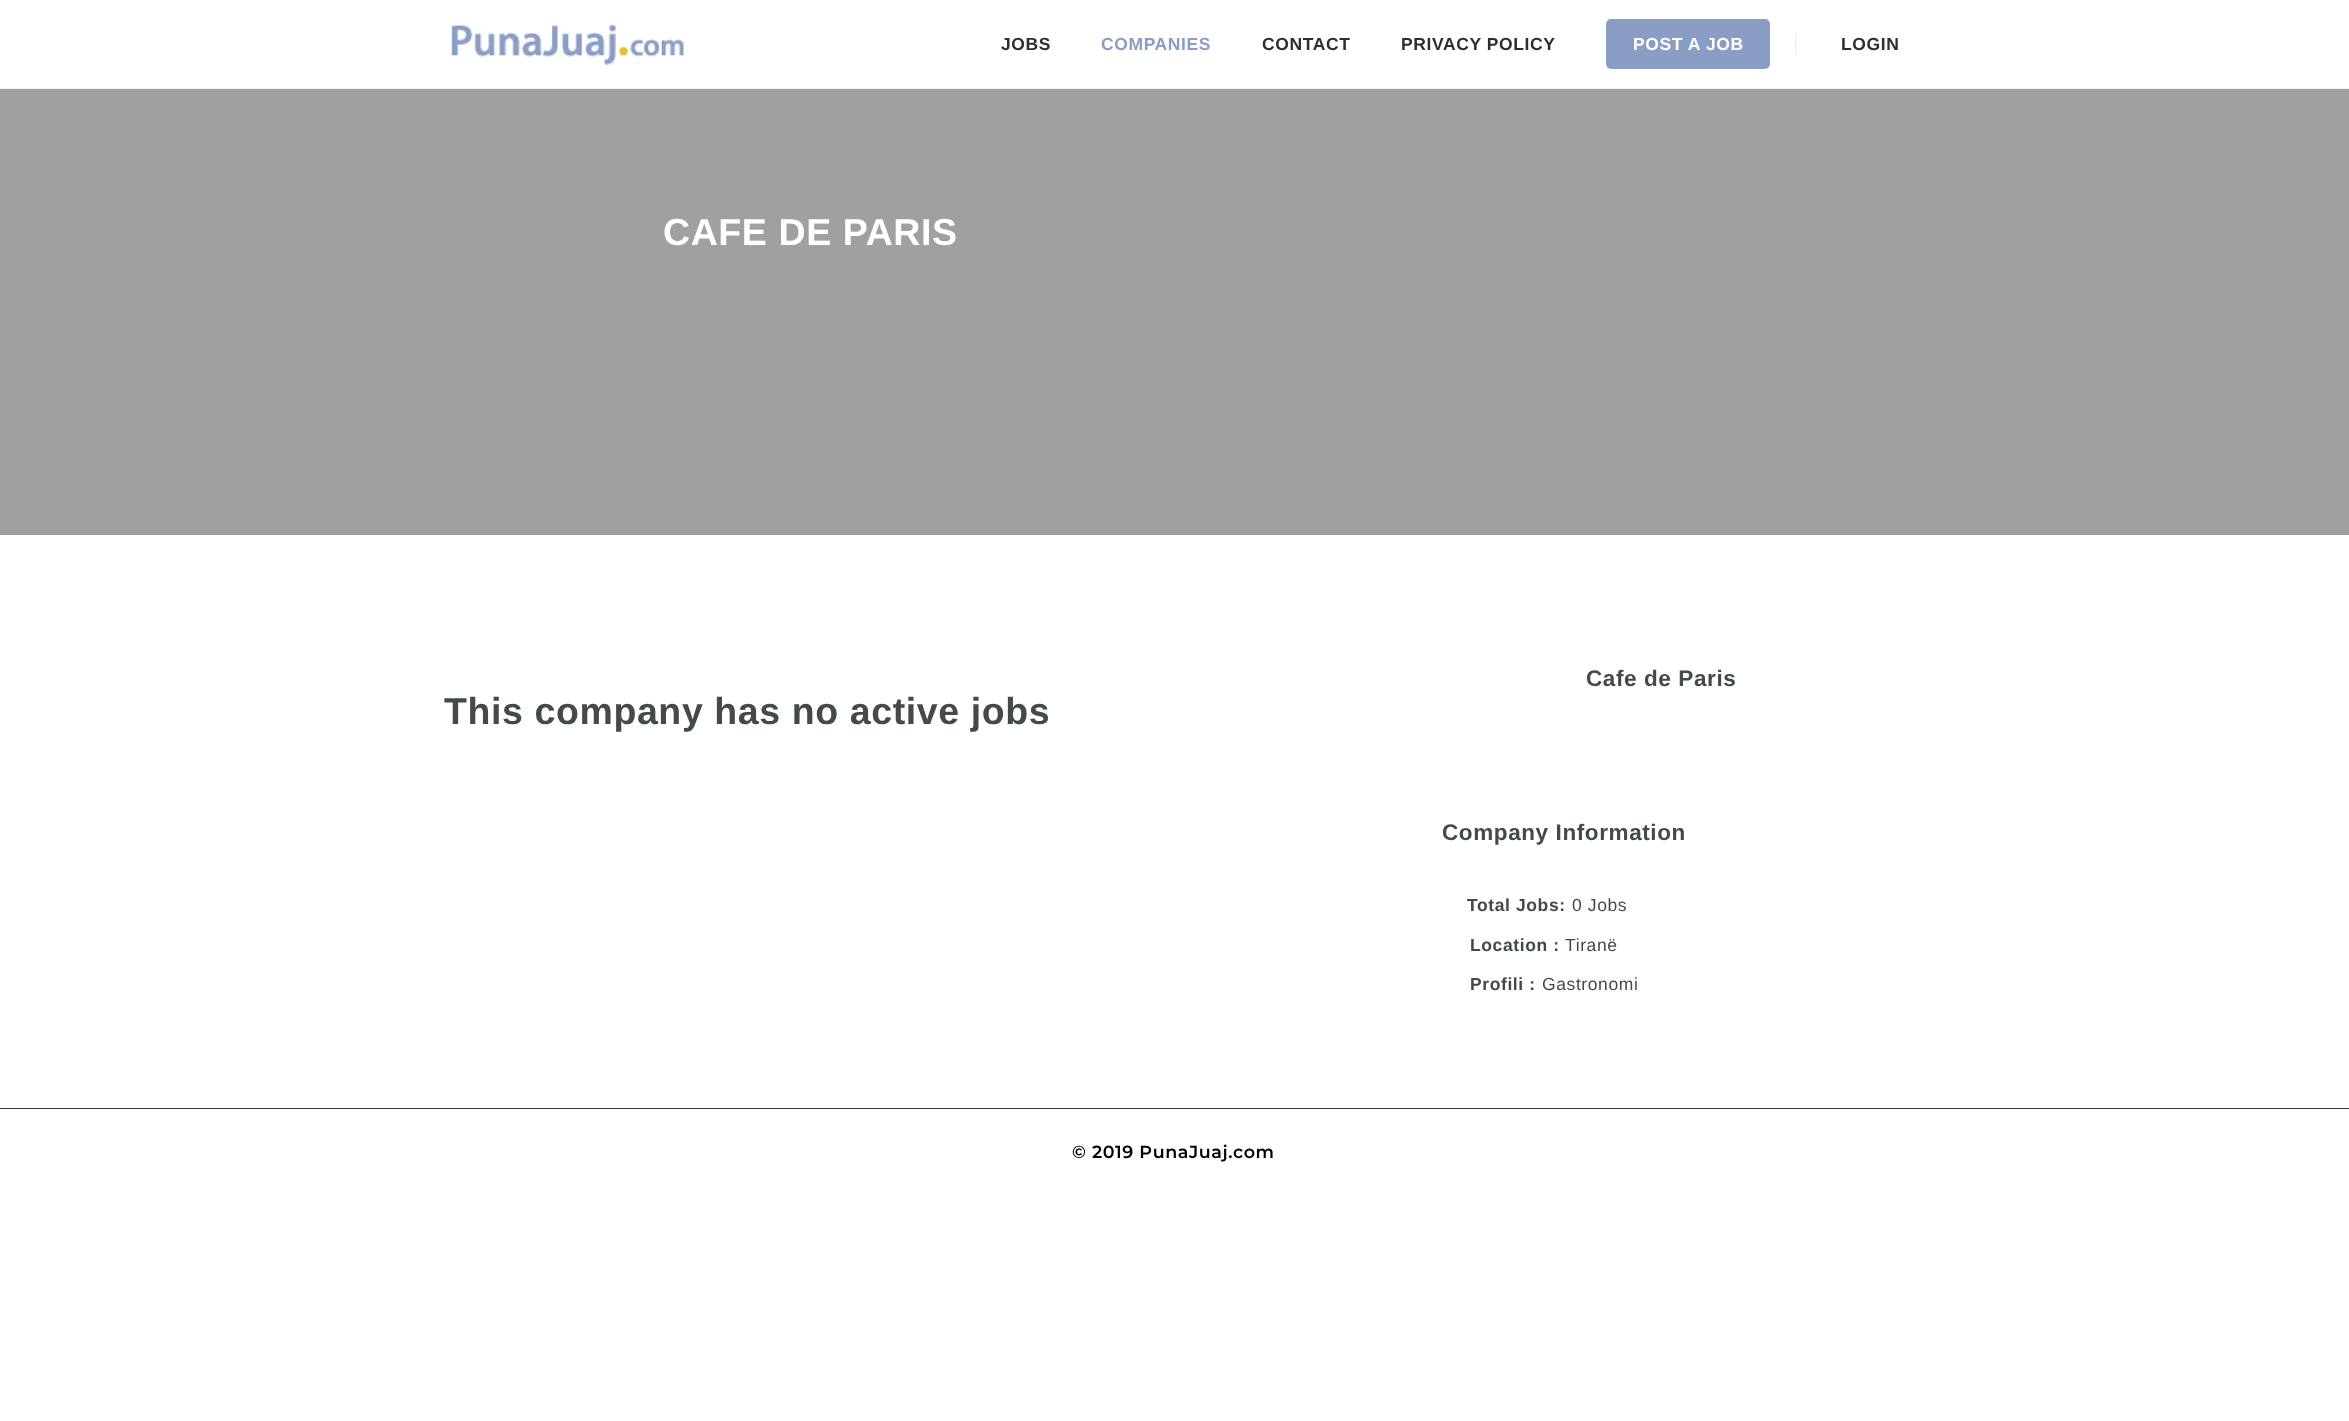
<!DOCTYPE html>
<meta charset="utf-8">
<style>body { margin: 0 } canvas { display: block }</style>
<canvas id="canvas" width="2349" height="1421"></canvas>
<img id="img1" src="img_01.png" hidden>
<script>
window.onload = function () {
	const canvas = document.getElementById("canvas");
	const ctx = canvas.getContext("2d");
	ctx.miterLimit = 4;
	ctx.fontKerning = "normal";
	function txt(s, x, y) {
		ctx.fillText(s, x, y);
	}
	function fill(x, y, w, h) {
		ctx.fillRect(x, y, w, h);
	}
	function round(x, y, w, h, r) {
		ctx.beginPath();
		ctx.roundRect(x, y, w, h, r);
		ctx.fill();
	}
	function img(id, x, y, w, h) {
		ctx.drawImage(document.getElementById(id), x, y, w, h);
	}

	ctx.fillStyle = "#FFFFFF";
	fill(0, 0, 2349, 1421);
	ctx.fillStyle = "#F2F2F2";
	fill(0, 88, 2349, 1);
	img("img1", 451, 24, 233, 41);
	ctx.fillStyle = "#8A9DC4";
	round(1606, 19, 164, 50, 5);
	ctx.fillStyle = "#EBEEEF";
	fill(1795, 33, 1, 22);
	ctx.fillStyle = "#A0A0A0";
	fill(0, 89, 2349, 446);
	ctx.fillStyle = "#32373A";
	fill(0, 1108, 2349, 1);
	ctx.letterSpacing = "0.6px";
	ctx.font = "bold 17.5px Liberation Sans";
	ctx.fillStyle = "#2E2E2E";
	txt("JOBS", 1001, 50);
	ctx.fillStyle = "#8A9DC4";
	txt("COMPANIES", 1101, 50);
	ctx.fillStyle = "#2E2E2E";
	txt("CONTACT", 1262, 50);
	txt("PRIVACY POLICY", 1401, 50);
	ctx.fillStyle = "#FFFFFF";
	txt("POST A JOB", 1633, 50);
	ctx.fillStyle = "#2E2E2E";
	txt("LOGIN", 1841, 50);
	ctx.font = "bold 37.5px Liberation Sans";
	ctx.fillStyle = "#FFFFFF";
	txt("CAFE DE PARIS", 663, 245);
	ctx.fillStyle = "#44494B";
	txt("This company has no active jobs", 444, 724);
	ctx.font = "bold 22.5px Liberation Sans";
	txt("Cafe de Paris", 1586, 686);
	txt("Company Information", 1442, 840);
	ctx.font = "bold 17.5px Liberation Sans";
	txt("Total Jobs:", 1467, 911);
	ctx.font = "17.5px Liberation Sans";
	txt("0 Jobs", 1572, 911);
	ctx.font = "bold 17.5px Liberation Sans";
	txt("Location :", 1470, 951);
	ctx.font = "17.5px Liberation Sans";
	txt("Tiranë", 1565, 951);
	ctx.font = "bold 17.5px Liberation Sans";
	txt("Profili :", 1470, 990);
	ctx.font = "17.5px Liberation Sans";
	txt("Gastronomi", 1542, 990);
	ctx.font = "600 17.5px Montserrat";
	ctx.fillStyle = "#000000";
	txt("© 2019 PunaJuaj.com", 1072, 1158);
};
</script>
